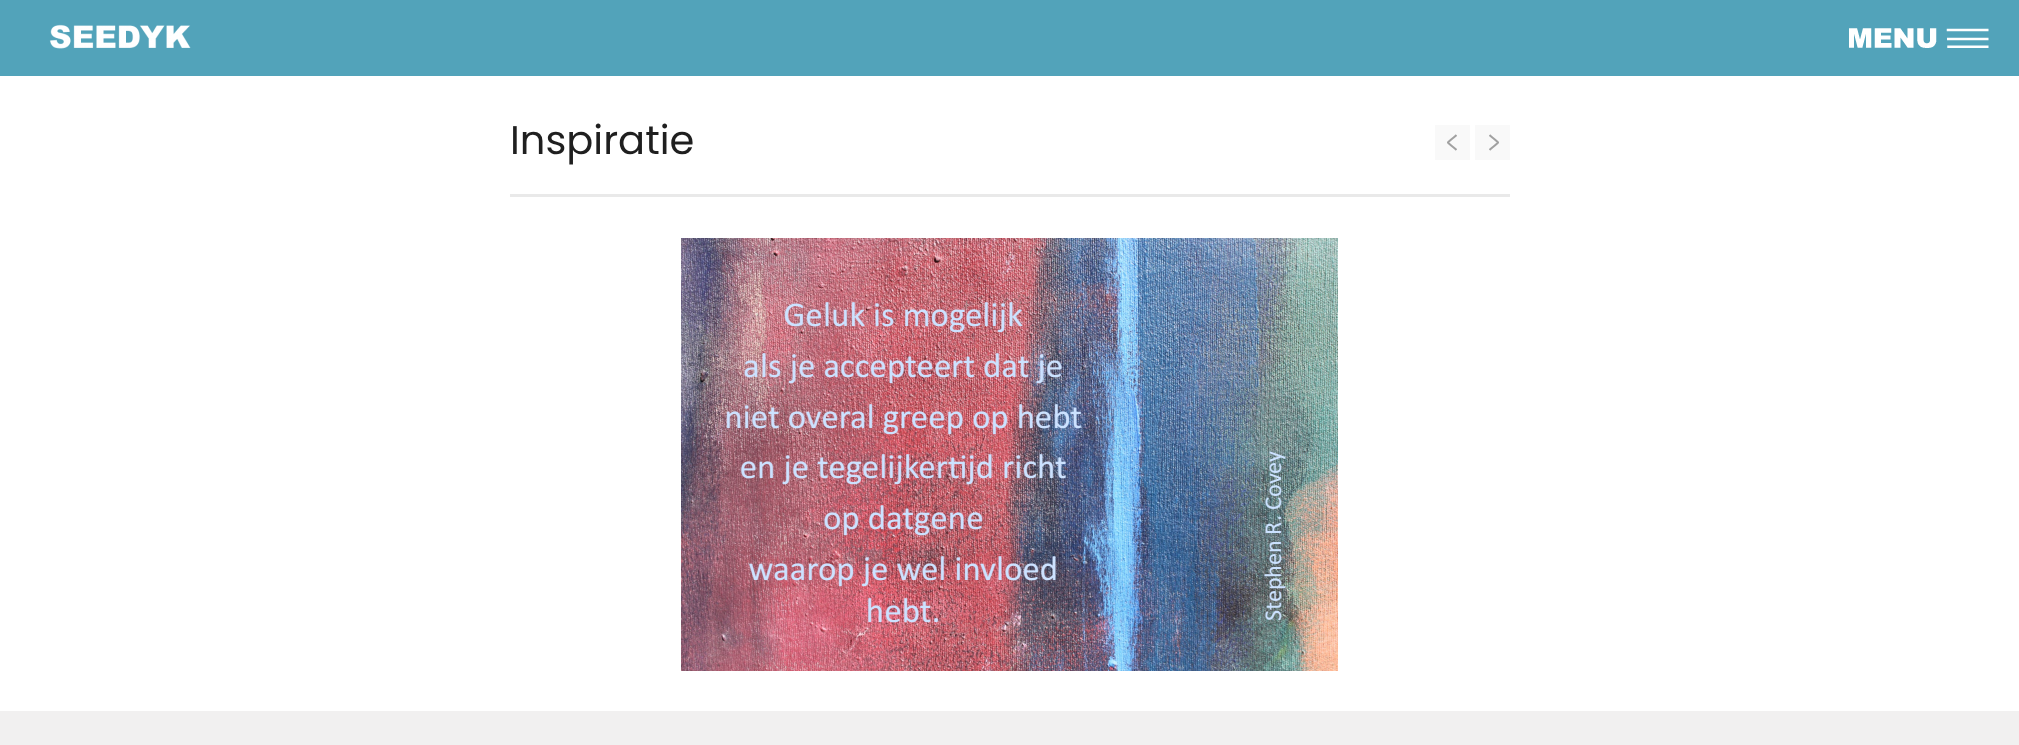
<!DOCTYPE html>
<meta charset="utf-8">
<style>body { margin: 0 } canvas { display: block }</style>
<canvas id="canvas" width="2019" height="745"></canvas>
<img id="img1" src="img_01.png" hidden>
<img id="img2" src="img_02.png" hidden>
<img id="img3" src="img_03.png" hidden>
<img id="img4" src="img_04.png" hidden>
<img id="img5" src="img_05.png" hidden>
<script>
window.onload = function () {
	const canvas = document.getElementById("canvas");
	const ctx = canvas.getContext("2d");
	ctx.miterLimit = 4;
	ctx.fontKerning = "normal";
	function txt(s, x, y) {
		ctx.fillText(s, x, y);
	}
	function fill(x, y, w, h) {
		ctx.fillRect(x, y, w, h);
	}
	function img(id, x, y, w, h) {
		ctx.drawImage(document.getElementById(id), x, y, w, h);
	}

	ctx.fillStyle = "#FFFFFF";
	fill(0, 0, 2019, 745);
	ctx.fillStyle = "#52A3BA";
	fill(0, 0, 2019, 76);
	img("img1", 49, 24, 142, 25);
	img("img2", 1849, 28, 140, 20);
	ctx.fillStyle = "#E9E9E9";
	fill(510, 194, 1000, 3);
	ctx.fillStyle = "#F9F9F9";
	fill(1435, 125, 35, 35);
	img("img3", 1447, 134, 10, 17);
	fill(1475, 125, 35, 35);
	img("img4", 1489, 134, 10, 17);
	img("img5", 681, 238, 657, 433);
	ctx.fillStyle = "#F1F0F0";
	fill(0, 711, 2019, 34);
	ctx.font = "40px Poppins";
	ctx.fillStyle = "#1F1F1F";
	txt("Inspiratie", 510, 154);
};
</script>
